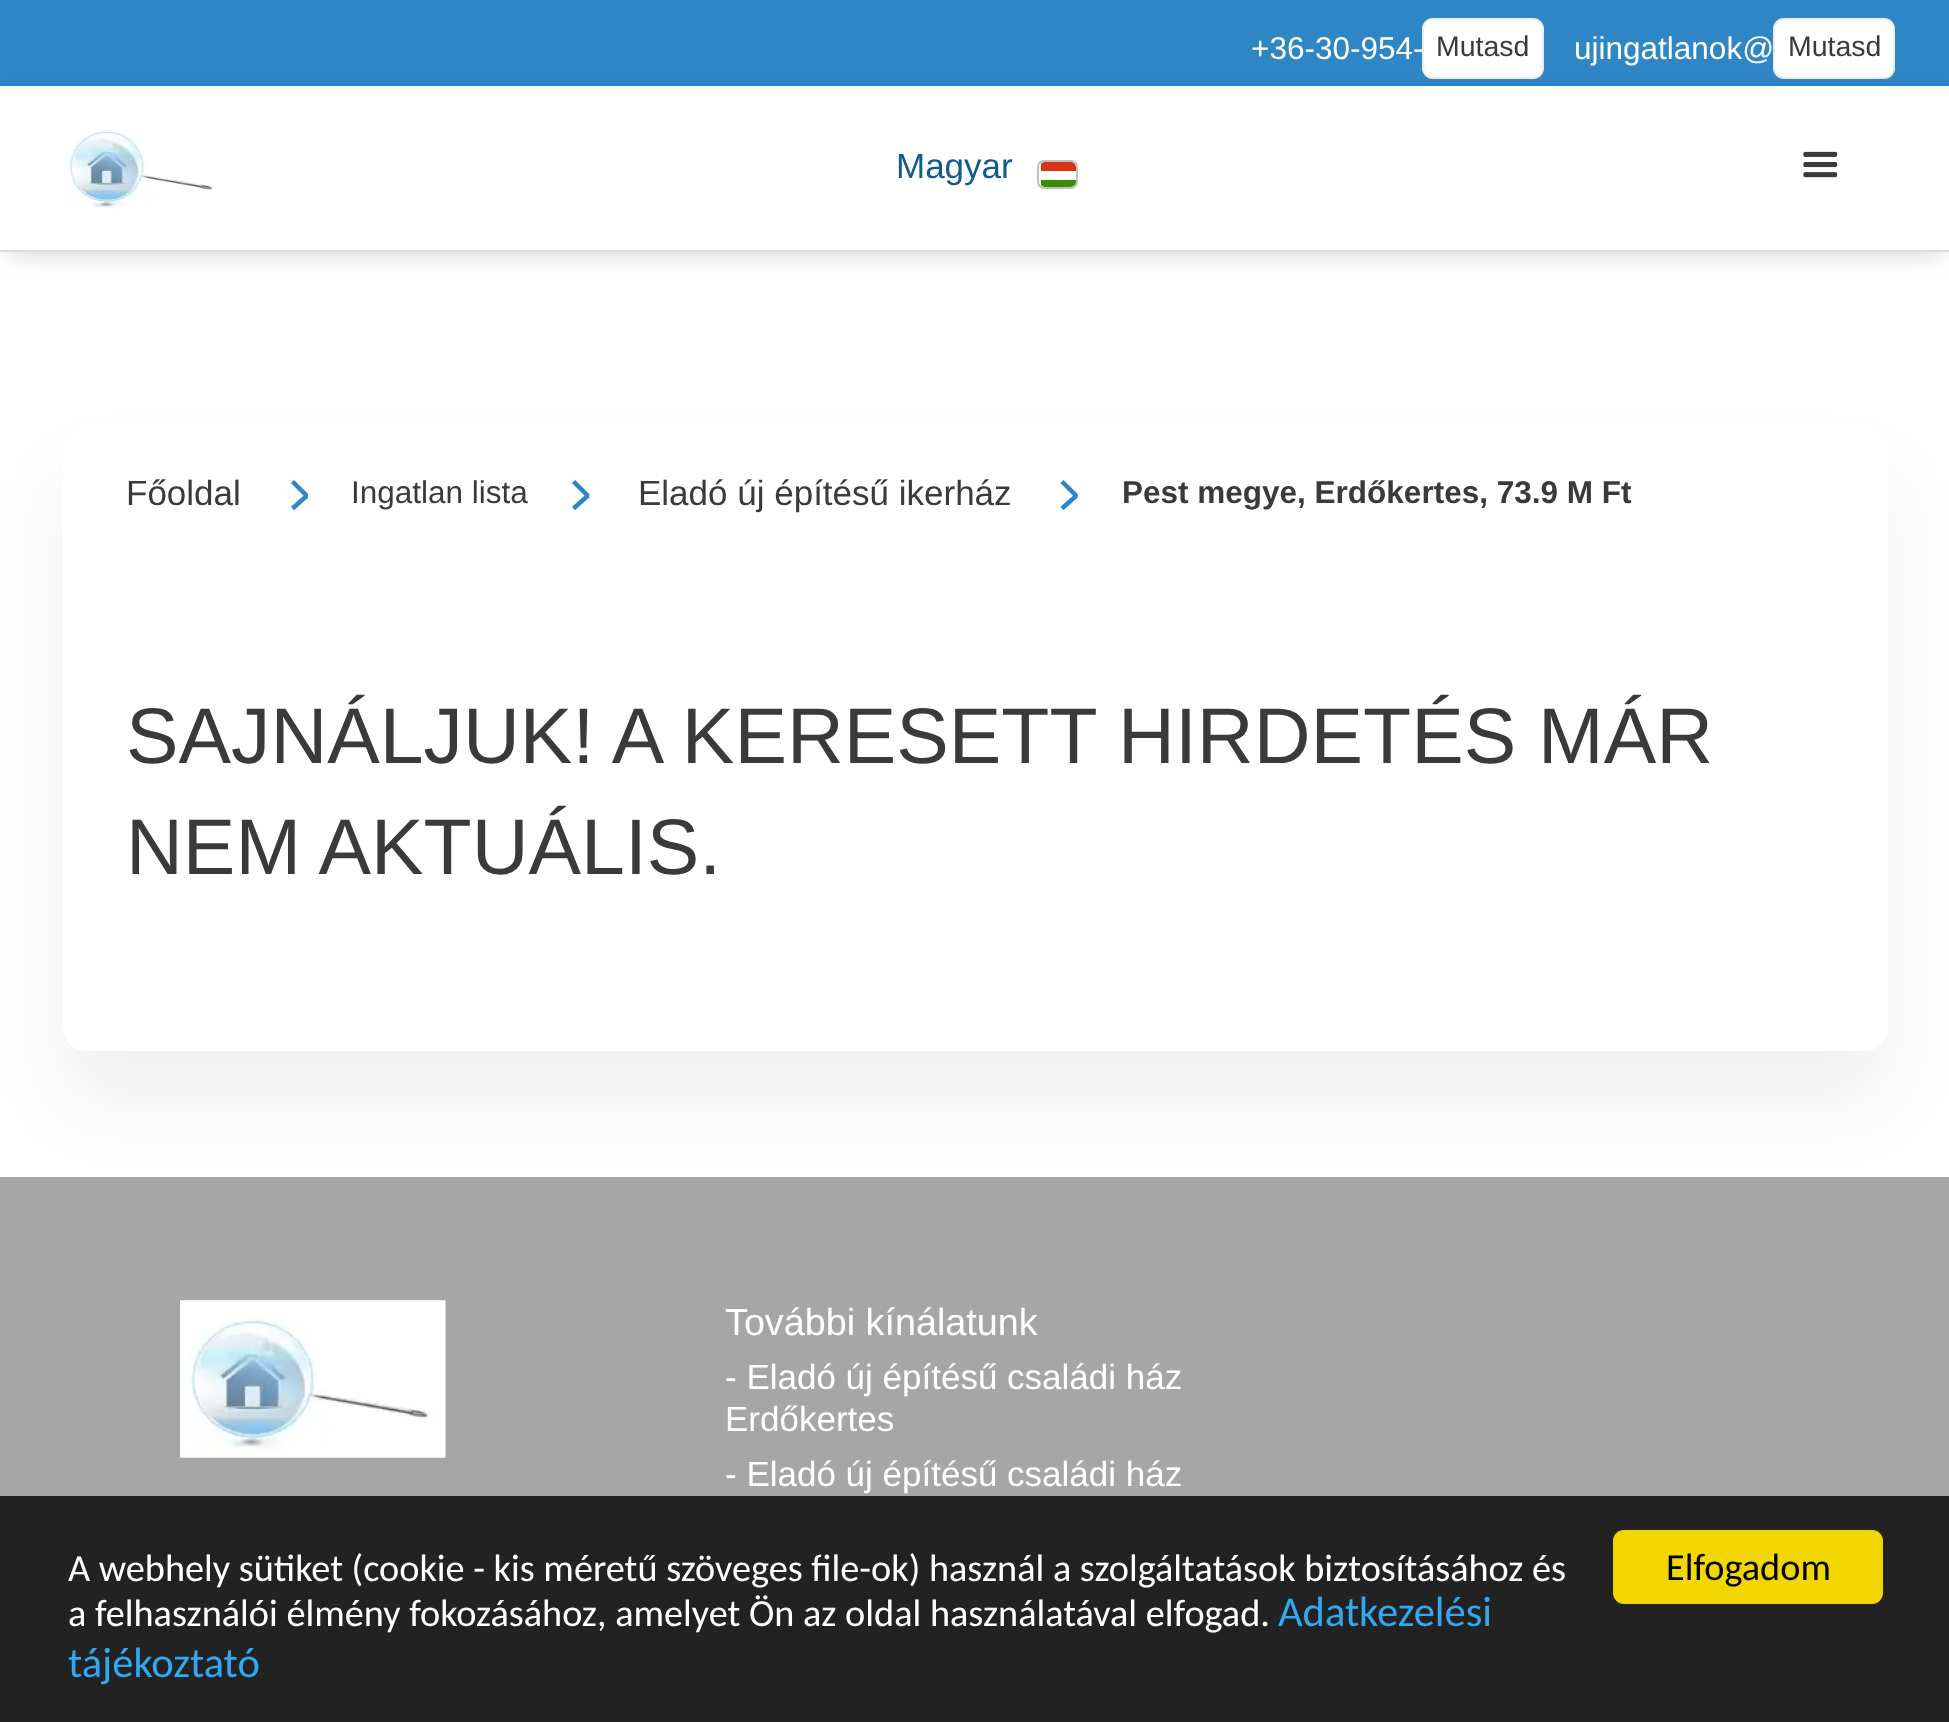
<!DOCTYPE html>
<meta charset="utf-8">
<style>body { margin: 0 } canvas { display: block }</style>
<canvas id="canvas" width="1949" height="1722"></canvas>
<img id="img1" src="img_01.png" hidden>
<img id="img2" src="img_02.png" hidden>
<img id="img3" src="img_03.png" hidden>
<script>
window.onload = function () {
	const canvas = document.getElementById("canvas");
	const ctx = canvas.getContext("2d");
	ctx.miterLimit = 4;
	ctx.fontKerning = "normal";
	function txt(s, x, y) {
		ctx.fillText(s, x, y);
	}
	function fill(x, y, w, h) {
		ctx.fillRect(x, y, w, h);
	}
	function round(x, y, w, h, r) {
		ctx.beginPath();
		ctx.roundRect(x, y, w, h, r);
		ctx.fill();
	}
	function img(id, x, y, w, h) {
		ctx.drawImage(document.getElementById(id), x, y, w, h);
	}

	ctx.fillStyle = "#FFFFFF";
	fill(0, 0, 1949, 1722);
	ctx.fillStyle = "#2E86C4";
	fill(0, 0, 1949, 86);
	ctx.fillStyle = "#FFFFFF";
	round(1422, 18, 122, 61, 11);
	ctx.beginPath();
	ctx.roundRect(1423, 19, 120, 59, 10);
	ctx.strokeStyle = "rgba(81, 81, 81, 0.1)";
	ctx.lineWidth = 2;
	ctx.stroke();
	round(1773, 18, 122, 61, 11);
	ctx.beginPath();
	ctx.roundRect(1774, 19, 120, 59, 10);
	ctx.stroke();
	ctx.fillStyle = "rgba(0, 0, 0, 0.2)";
	ctx.filter = "blur(13.5px)";
	ctx.beginPath();
	ctx.rect(9, 104, 1933, 148);
	ctx.fill();
	ctx.filter = "none";
	ctx.fillStyle = "#FFFFFF";
	fill(0, 86, 1949, 164);
	ctx.fillStyle = "#DCDCDC";
	fill(0, 250, 1949, 2);
	img("img1", 66, 130, 147, 79);
	ctx.beginPath();
	ctx.roundRect(1038, 161, 39, 27, 6);
	ctx.strokeStyle = "#C0C0C0";
	ctx.stroke();
	ctx.save();
	ctx.beginPath();
	ctx.roundRect(1040, 162, 36, 25, 5);
	ctx.clip();
	ctx.fillStyle = "#FFFFFF";
	ctx.beginPath();
	ctx.roundRect(1041, 162, 35, 25, [0, 5, 5, 0]);
	ctx.fill();
	ctx.fillStyle = "#388D00";
	ctx.beginPath();
	ctx.roundRect(1041, 180, 35, 7, [0, 0, 5, 0]);
	ctx.fill();
	ctx.fillStyle = "#D43516";
	ctx.beginPath();
	ctx.roundRect(1041, 162, 35, 9, [0, 5, 0, 0]);
	ctx.fill();
	ctx.restore();
	img("img2", 1803, 151, 35, 27);
	ctx.fillStyle = "#A6A6A6";
	fill(0, 1177, 1949, 319);
	ctx.fillStyle = "rgba(0, 0, 0, 0.06)";
	ctx.filter = "blur(38px)";
	ctx.beginPath();
	ctx.roundRect(63, 477, 1825, 626, 23);
	ctx.fill();
	ctx.filter = "none";
	ctx.fillStyle = "#FFFFFF";
	round(63, 425, 1825, 626, 23);
	ctx.save();
	ctx.beginPath();
	ctx.rect(290, 425, 18, 140);
	ctx.clip();
	ctx.beginPath();
	ctx.moveTo(292.5, 481.5);
	ctx.lineTo(306, 495);
	ctx.lineTo(306, 496.5);
	ctx.lineTo(292.5, 508.5);
	ctx.strokeStyle = "#2E86C4";
	ctx.lineWidth = 4.5;
	ctx.stroke();
	ctx.restore();
	ctx.beginPath();
	ctx.moveTo(573.5, 481.5);
	ctx.lineTo(587, 495);
	ctx.lineTo(587, 496.5);
	ctx.lineTo(573.5, 508.5);
	ctx.strokeStyle = "#2E86C4";
	ctx.lineWidth = 4.5;
	ctx.stroke();
	ctx.beginPath();
	ctx.moveTo(1062, 481.5);
	ctx.lineTo(1075.5, 495);
	ctx.lineTo(1075.5, 496.5);
	ctx.lineTo(1062, 508.5);
	ctx.stroke();
	img("img3", 180, 1300, 266, 158);
	ctx.fillStyle = "#222222";
	fill(0, 1496, 1949, 226);
	ctx.fillStyle = "#F1D600";
	round(1613, 1530, 270, 74, 11);
	ctx.font = "31.5px Liberation Sans";
	ctx.fillStyle = "#FFFFFF";
	txt("+36-30-954-", 1251, 59);
	ctx.font = "28.5px Liberation Sans";
	ctx.fillStyle = "#3A3A3A";
	txt("Mutasd", 1436, 56);
	ctx.font = "31.5px Liberation Sans";
	ctx.fillStyle = "#FFFFFF";
	txt("ujingatlanok@", 1574, 59);
	ctx.font = "28.5px Liberation Sans";
	ctx.fillStyle = "#3A3A3A";
	txt("Mutasd", 1788, 56);
	ctx.font = "35px Liberation Sans";
	ctx.fillStyle = "#135B8D";
	txt("Magyar", 896, 178);
	ctx.fillStyle = "#3A3A3A";
	txt("Főoldal", 126, 505);
	ctx.font = "31.5px Liberation Sans";
	txt("Ingatlan lista", 351, 503);
	ctx.font = "35px Liberation Sans";
	txt("Eladó új építésű ikerház", 638, 505);
	ctx.font = "bold 31.5px Liberation Sans";
	txt("Pest megye, Erdőkertes, 73.9 M Ft", 1122, 503);
	ctx.font = "78.75px Liberation Sans";
	txt("SAJNÁLJUK! A KERESETT HIRDETÉS MÁR", 126, 763);
	txt("NEM AKTUÁLIS.", 126, 874);
	ctx.font = "37.75px Liberation Sans";
	ctx.fillStyle = "#FFFFFF";
	txt("További kínálatunk", 725, 1335);
	ctx.font = "35px Liberation Sans";
	txt("- Eladó új építésű családi ház", 725, 1389);
	txt("Erdőkertes", 725, 1431);
	txt("- Eladó új építésű családi ház", 725, 1486);
	ctx.font = "38.25px Carlito";
	txt("A webhely sütiket (cookie - kis méretű szöveges file-ok) használ a szolgáltatások biztosításához és", 68, 1581);
	txt("a felhasználói élmény fokozásához, amelyet Ön az oldal használatával elfogad.", 68, 1626);
	ctx.font = "42.5px Carlito";
	ctx.fillStyle = "#31A8F0";
	txt("Adatkezelési", 1278, 1626);
	txt("tájékoztató", 68, 1677);
	ctx.font = "38.25px Carlito";
	ctx.fillStyle = "#000000";
	txt("Elfogadom", 1666, 1580);
};
</script>
